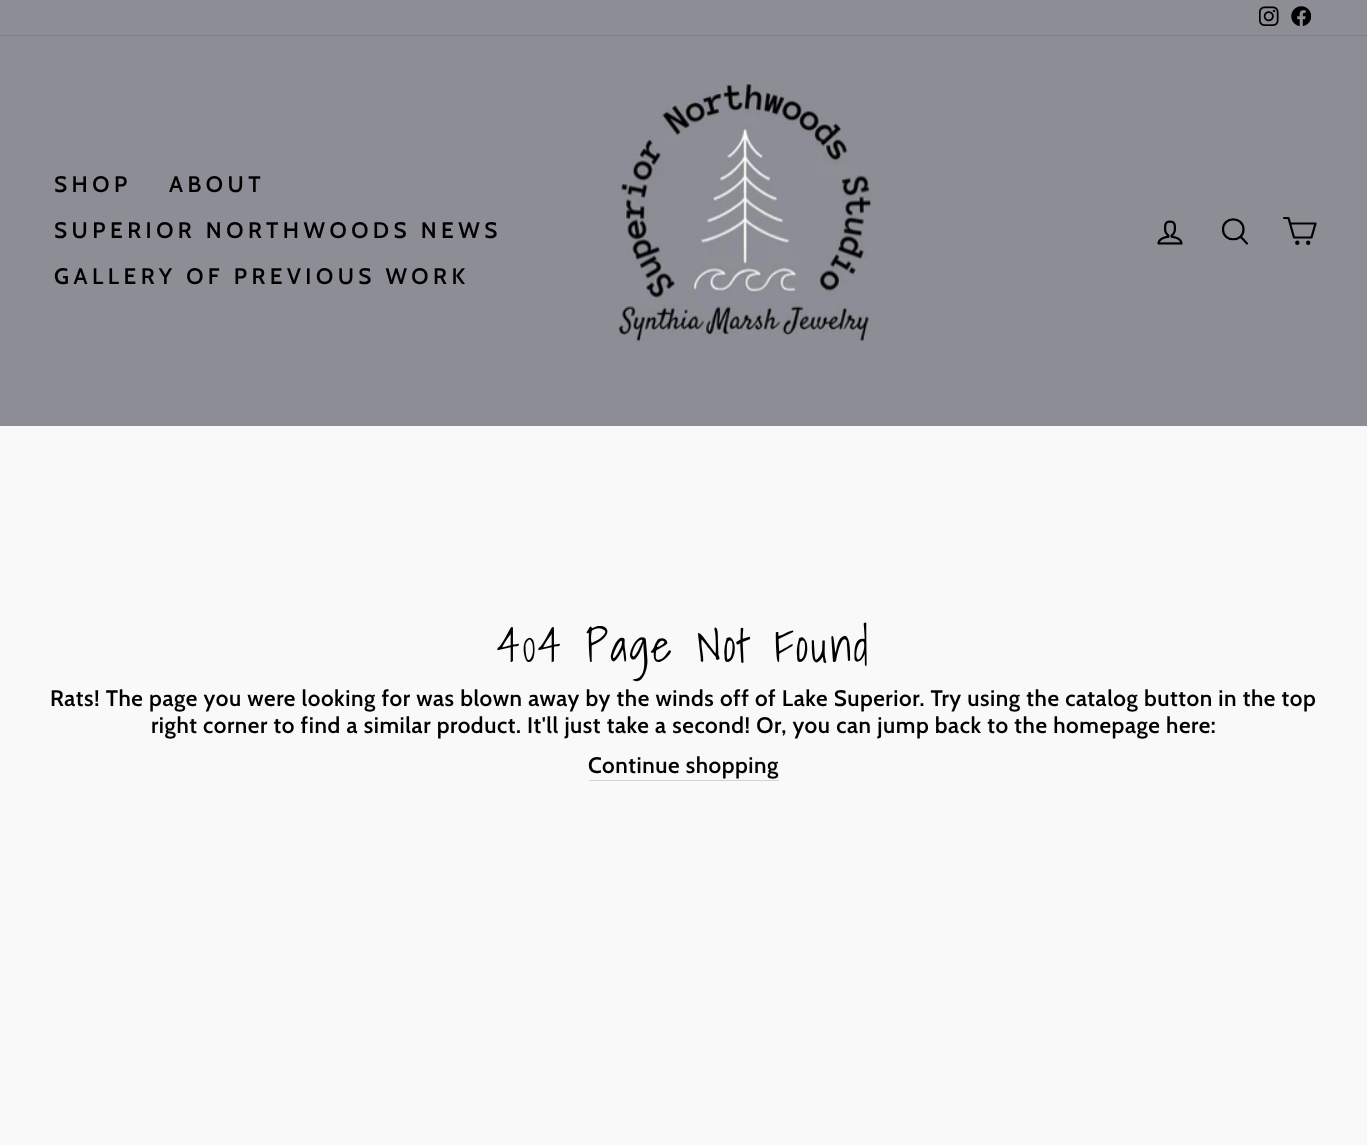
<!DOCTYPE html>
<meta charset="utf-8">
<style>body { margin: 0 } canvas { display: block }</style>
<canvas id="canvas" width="1367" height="1145"></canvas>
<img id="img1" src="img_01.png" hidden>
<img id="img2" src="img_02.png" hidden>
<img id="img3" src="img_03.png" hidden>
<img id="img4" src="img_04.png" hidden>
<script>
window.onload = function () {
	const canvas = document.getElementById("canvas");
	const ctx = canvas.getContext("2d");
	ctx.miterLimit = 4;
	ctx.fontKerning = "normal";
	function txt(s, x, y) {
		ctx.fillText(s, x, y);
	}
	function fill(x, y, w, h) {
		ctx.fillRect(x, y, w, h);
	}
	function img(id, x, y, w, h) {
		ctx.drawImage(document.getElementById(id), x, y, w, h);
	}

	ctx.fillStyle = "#F9F9F9";
	fill(0, 0, 1367, 1145);
	ctx.fillStyle = "#8D8D96";
	fill(0, 0, 1367, 35);
	img("img1", 1259, 6, 20, 20);
	img("img2", 1291, 6, 20, 20);
	fill(0, 36, 1367, 390);
	ctx.fillStyle = "#7F7F87";
	fill(0, 35, 1367, 1);
	img("img3", 618, 83, 254, 259);
	img("img4", 1157, 220, 26, 25);
	ctx.beginPath();
	ctx.moveTo(1243.5, 229.5);
	ctx.bezierCurveTo(1243.5, 242.5, 1223, 242.5, 1223, 229.5);
	ctx.bezierCurveTo(1223, 216, 1243.5, 216, 1243.5, 229.5);
	ctx.closePath();
	ctx.moveTo(1247, 243.5);
	ctx.lineTo(1240.5, 236.5);
	ctx.strokeStyle = "#000000";
	ctx.lineWidth = 2.2;
	ctx.lineCap = "round";
	ctx.lineJoin = "round";
	ctx.stroke();
	ctx.beginPath();
	ctx.moveTo(1290, 223.5);
	ctx.lineTo(1315.5, 223.5);
	ctx.lineTo(1311.5, 237.5);
	ctx.lineTo(1294, 237.5);
	ctx.lineTo(1288.5, 218);
	ctx.lineTo(1284, 218);
	ctx.stroke();
	ctx.beginPath();
	ctx.arc(1297.3, 242.7, 1.1, 0, Math.PI * 2);
	ctx.stroke();
	ctx.beginPath();
	ctx.arc(1308.2, 242.7, 1.1, 0, Math.PI * 2);
	ctx.stroke();
	ctx.fillStyle = "#D4D4D4";
	fill(589, 780, 190, 1);
	ctx.letterSpacing = "4.5px";
	ctx.font = "600 22.5px Cabin";
	ctx.fillStyle = "#000000";
	txt("SHOP", 54, 192);
	txt("ABOUT", 169, 192);
	txt("SUPERIOR NORTHWOODS NEWS", 54, 238);
	txt("GALLERY OF PREVIOUS WORK", 54, 284);
	ctx.letterSpacing = "2.25px";
	ctx.font = "45px Shadows Into Light";
	txt("404 Page Not Found", 497, 662);
	ctx.letterSpacing = "0.56px";
	ctx.font = "600 22.5px Cabin";
	txt("Rats! The page you were looking for was blown away by the winds off of Lake Superior. Try using the catalog button in the top", 50, 706);
	txt("right corner to find a similar product. It'll just take a second! Or, you can jump back to the homepage here:", 151, 733);
	txt("Continue shopping", 588, 773);
};
</script>
